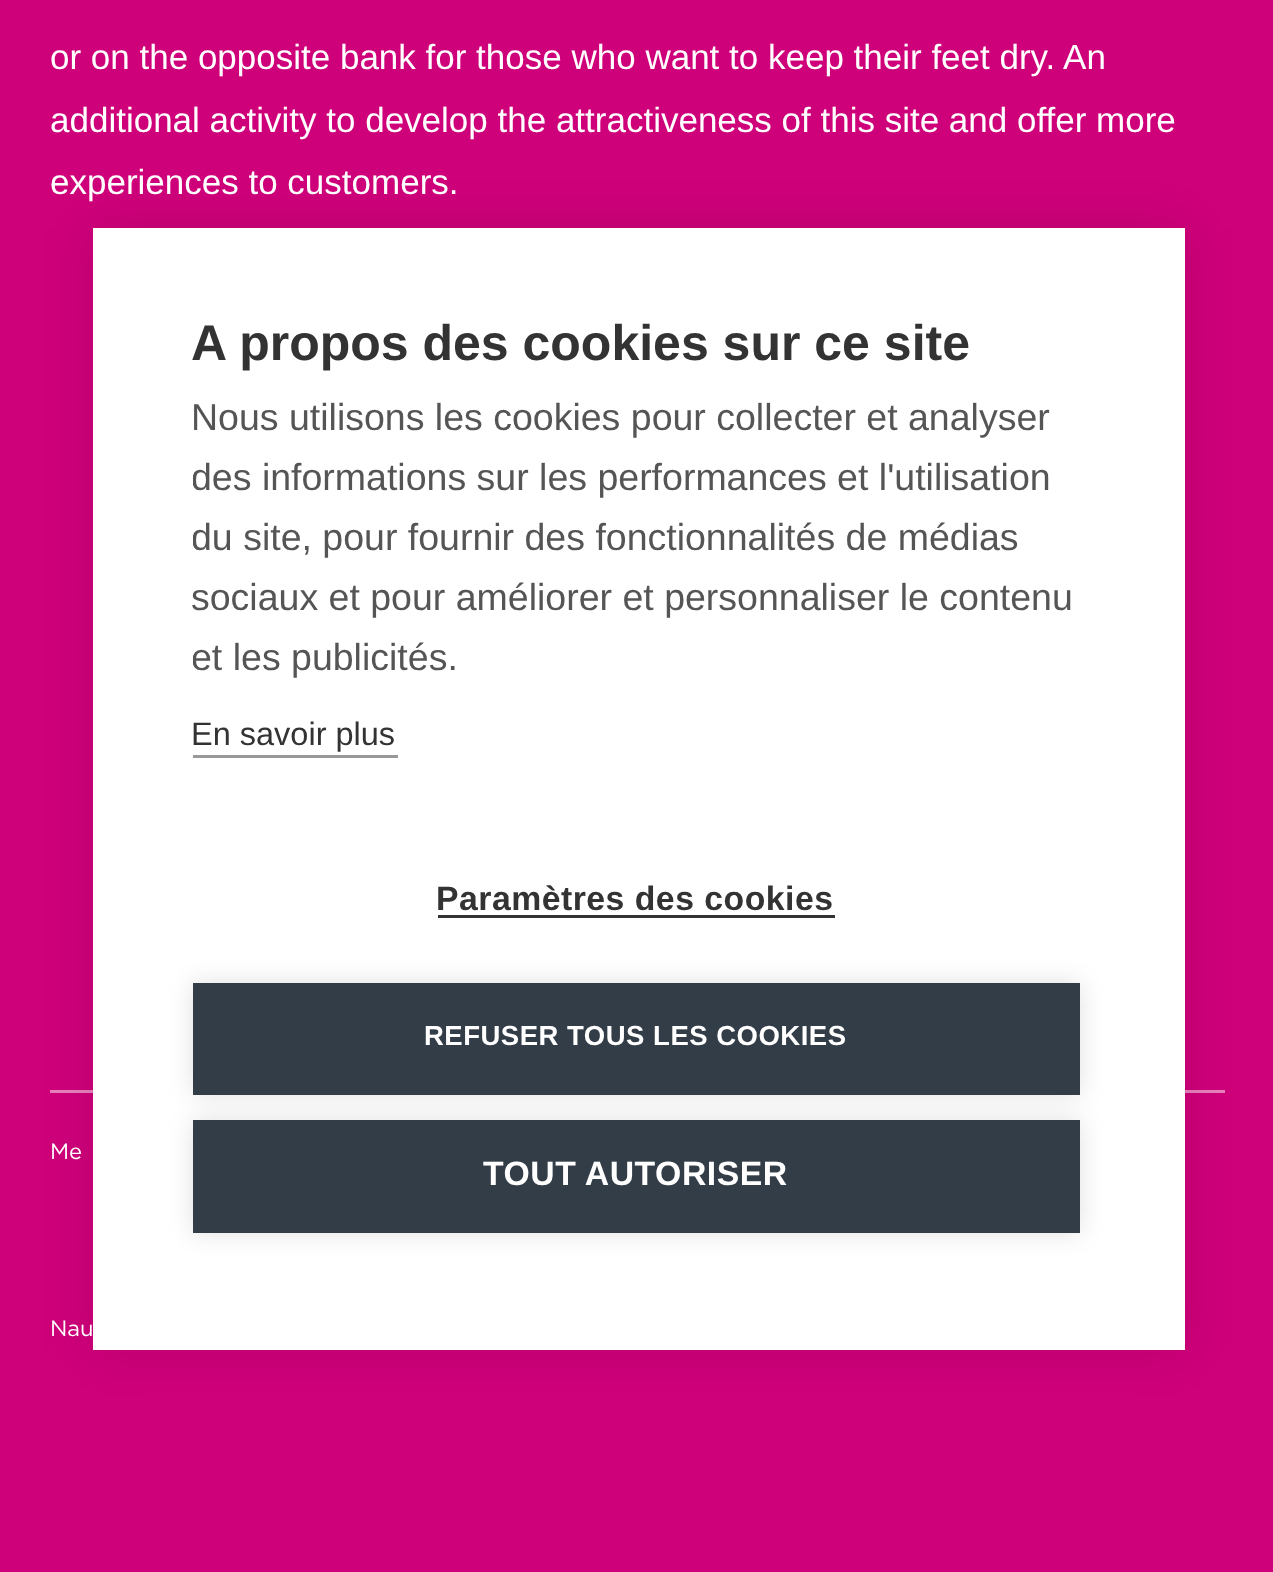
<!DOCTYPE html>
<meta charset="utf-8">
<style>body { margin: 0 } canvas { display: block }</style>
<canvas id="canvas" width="1273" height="1572"></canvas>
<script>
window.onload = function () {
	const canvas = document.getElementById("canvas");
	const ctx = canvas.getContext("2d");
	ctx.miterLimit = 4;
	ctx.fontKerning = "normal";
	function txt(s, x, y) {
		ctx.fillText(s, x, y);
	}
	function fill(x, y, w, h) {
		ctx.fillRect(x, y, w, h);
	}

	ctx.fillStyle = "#CE007A";
	fill(0, 0, 1273, 1572);
	ctx.fillStyle = "#E780BD";
	fill(50, 1090, 1175, 3);
	ctx.fillStyle = "rgba(0, 0, 0, 0.1)";
	ctx.filter = "blur(25px)";
	ctx.beginPath();
	ctx.rect(93, 228, 1092, 1122);
	ctx.fill();
	ctx.filter = "none";
	ctx.fillStyle = "#FFFFFF";
	fill(93, 228, 1092, 1122);
	ctx.fillStyle = "#999999";
	fill(193, 755, 205, 3);
	ctx.fillStyle = "#333333";
	fill(438, 915, 397, 3);
	ctx.fillStyle = "rgba(0, 0, 0, 0.12)";
	ctx.filter = "blur(12.5px)";
	ctx.beginPath();
	ctx.rect(193, 983, 887, 112);
	ctx.fill();
	ctx.filter = "none";
	ctx.fillStyle = "#333D48";
	fill(193, 983, 887, 112);
	ctx.fillStyle = "rgba(0, 0, 0, 0.12)";
	ctx.filter = "blur(12.5px)";
	ctx.beginPath();
	ctx.rect(193, 1120, 887, 113);
	ctx.fill();
	ctx.filter = "none";
	ctx.fillStyle = "#333D48";
	fill(193, 1120, 887, 113);
	ctx.font = "35px Liberation Sans";
	ctx.fillStyle = "#FFFFFF";
	txt("or on the opposite bank for those who want to keep their feet dry. An", 50, 69);
	txt("additional activity to develop the attractiveness of this site and offer more", 50, 132);
	txt("experiences to customers.", 50, 194);
	ctx.font = "22px Gotham";
	txt("Me", 50, 1159);
	txt("Nau", 50, 1336);
	ctx.font = "bold 50px Liberation Sans";
	ctx.fillStyle = "#333333";
	txt("A propos des cookies sur ce site", 191, 360);
	ctx.font = "37.5px Liberation Sans";
	ctx.fillStyle = "#555555";
	txt("Nous utilisons les cookies pour collecter et analyser", 191, 430);
	ctx.save();
	ctx.beginPath();
	ctx.rect(193, 320, 892, 450);
	ctx.clip();
	txt("des informations sur les performances et l'utilisation", 191, 490);
	txt("du site, pour fournir des fonctionnalités de médias", 191, 550);
	ctx.restore();
	txt("sociaux et pour améliorer et personnaliser le contenu", 191, 610);
	ctx.save();
	ctx.beginPath();
	ctx.rect(193, 320, 892, 450);
	ctx.clip();
	txt("et les publicités.", 191, 670);
	ctx.restore();
	ctx.font = "32.5px Liberation Sans";
	ctx.fillStyle = "#333333";
	txt("En savoir plus", 191, 745);
	ctx.letterSpacing = "0.5px";
	ctx.font = "bold 33.75px Liberation Sans";
	txt("Paramètres des cookies", 436, 910);
	ctx.font = "bold 27.5px Liberation Sans";
	ctx.fillStyle = "#FFFFFF";
	txt("REFUSER TOUS LES COOKIES", 424, 1045);
	ctx.font = "bold 33.75px Liberation Sans";
	txt("TOUT AUTORISER", 483, 1185);
};
</script>
